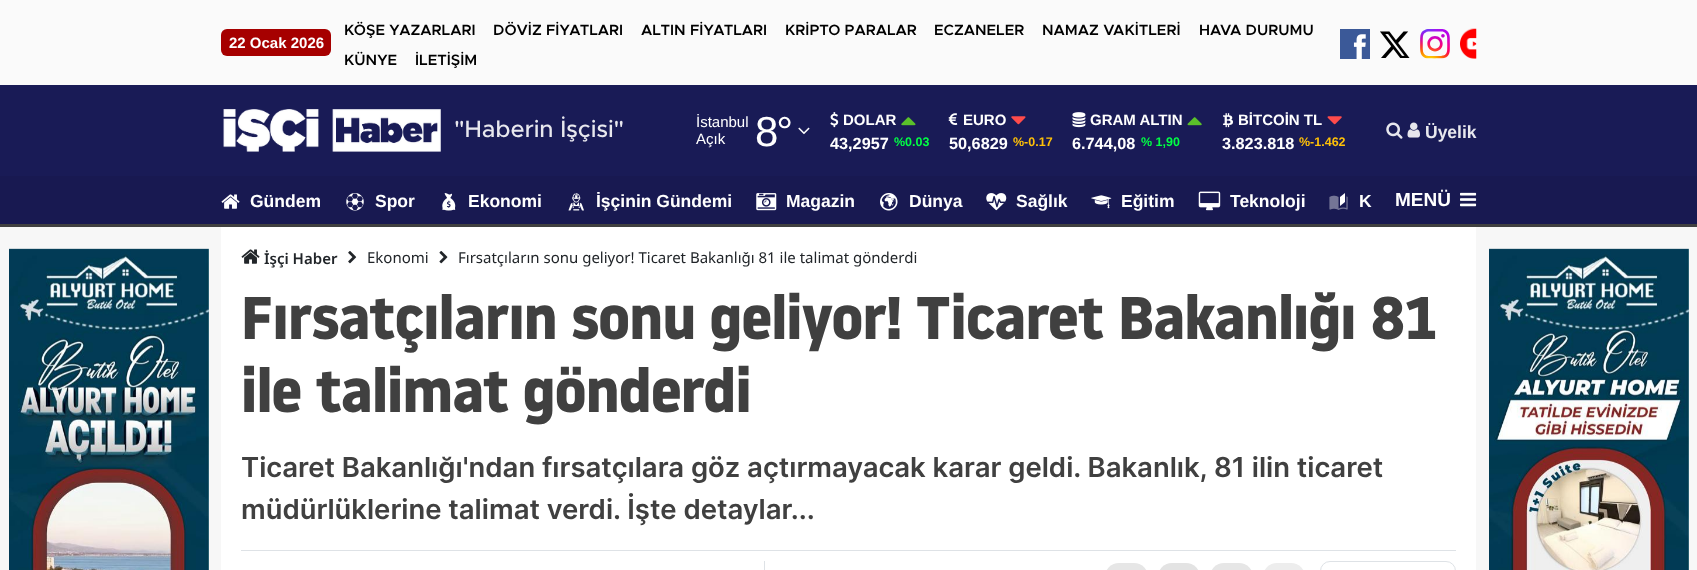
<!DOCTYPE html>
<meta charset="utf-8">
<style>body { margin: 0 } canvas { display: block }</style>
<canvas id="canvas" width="1697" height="570"></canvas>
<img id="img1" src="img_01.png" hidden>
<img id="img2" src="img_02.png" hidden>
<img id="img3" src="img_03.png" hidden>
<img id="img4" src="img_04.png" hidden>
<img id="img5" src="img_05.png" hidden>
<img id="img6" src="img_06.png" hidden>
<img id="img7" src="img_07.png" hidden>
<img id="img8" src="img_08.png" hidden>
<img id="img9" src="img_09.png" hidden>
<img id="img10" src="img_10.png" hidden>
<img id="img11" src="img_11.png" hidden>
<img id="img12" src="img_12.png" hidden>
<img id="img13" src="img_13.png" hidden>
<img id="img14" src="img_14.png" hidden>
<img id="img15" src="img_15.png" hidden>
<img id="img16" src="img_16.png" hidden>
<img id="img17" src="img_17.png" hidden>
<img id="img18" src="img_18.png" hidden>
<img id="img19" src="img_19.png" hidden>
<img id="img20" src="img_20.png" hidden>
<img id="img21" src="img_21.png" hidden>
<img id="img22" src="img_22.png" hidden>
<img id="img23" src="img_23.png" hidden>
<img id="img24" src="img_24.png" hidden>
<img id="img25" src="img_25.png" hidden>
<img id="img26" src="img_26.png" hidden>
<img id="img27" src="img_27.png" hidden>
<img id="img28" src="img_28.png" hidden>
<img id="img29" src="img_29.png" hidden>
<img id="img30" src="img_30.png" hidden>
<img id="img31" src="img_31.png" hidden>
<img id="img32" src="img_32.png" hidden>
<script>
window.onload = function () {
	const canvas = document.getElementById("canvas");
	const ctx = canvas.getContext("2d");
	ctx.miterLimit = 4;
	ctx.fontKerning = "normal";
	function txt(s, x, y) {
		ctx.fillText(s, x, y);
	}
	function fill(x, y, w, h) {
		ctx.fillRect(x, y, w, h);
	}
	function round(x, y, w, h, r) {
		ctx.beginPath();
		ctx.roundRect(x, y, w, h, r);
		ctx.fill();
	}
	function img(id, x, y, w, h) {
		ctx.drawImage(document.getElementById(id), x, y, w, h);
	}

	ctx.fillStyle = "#FAFAFA";
	fill(0, 0, 1697, 570);
	ctx.fillStyle = "#A60000";
	round(221, 29, 110, 27, 6);
	img("img1", 1340, 29, 30, 30);
	img("img2", 1380, 31, 30, 27);
	img("img3", 1420, 29, 30, 30);
	img("img4", 1460, 28, 17, 31);
	ctx.fillStyle = "#191B56";
	fill(0, 85, 1697, 91);
	img("img5", 223, 109, 218, 43);
	img("img6", 798, 127, 12, 8);
	img("img7", 830, 112, 9, 16);
	img("img8", 901, 117, 15, 9);
	img("img9", 948, 113, 10, 12);
	img("img10", 1011, 116, 15, 9);
	img("img11", 1072, 112, 14, 16);
	img("img12", 1187, 117, 15, 9);
	img("img13", 1223, 113, 10, 15);
	img("img14", 1327, 116, 15, 9);
	img("img15", 1386, 122, 17, 17);
	img("img16", 1407, 122, 13, 16);
	ctx.fillStyle = "#181951";
	fill(0, 176, 1697, 48);
	ctx.fillStyle = "#404040";
	fill(0, 224, 1697, 3);
	img("img17", 221, 194, 19, 15);
	img("img18", 346, 193, 18, 18);
	img("img19", 442, 193, 14, 18);
	img("img20", 568, 193, 16, 18);
	img("img21", 756, 193, 21, 18);
	img("img22", 880, 193, 18, 18);
	img("img23", 986, 193, 21, 18);
	img("img24", 1091, 195, 21, 14);
	img("img25", 1198, 191, 23, 20);
	ctx.fillStyle = "#FFFFFF";
	ctx.beginPath();
	ctx.moveTo(1345, 193);
	ctx.lineTo(1345, 202);
	ctx.lineTo(1340, 206);
	ctx.lineTo(1340, 197);
	ctx.closePath();
	ctx.fill();
	img("img26", 1329, 195, 19, 15);
	img("img27", 1460, 192, 17, 15);
	ctx.fillStyle = "#F7F7F7";
	fill(0, 227, 1697, 343);
	img("img28", 9, 248, 200, 322);
	ctx.fillStyle = "#FFFFFF";
	fill(221, 227, 1255, 343);
	img("img29", 241, 249, 19, 15);
	img("img30", 348, 251, 9, 13);
	img("img31", 439, 251, 9, 13);
	ctx.fillStyle = "#DEE2E6";
	fill(241, 550, 1215, 1);
	fill(764, 561, 1, 9);
	ctx.fillStyle = "#E6E6E6";
	round(1105, 563, 43, 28, 21);
	ctx.fillStyle = "#E3E3E3";
	round(1158, 563, 42, 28, 21);
	ctx.fillStyle = "#E6E6E6";
	round(1210, 563, 43, 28, 21);
	ctx.fillStyle = "#EDEDED";
	round(1263, 563, 42, 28, 21);
	ctx.beginPath();
	ctx.roundRect(1320.5, 561.5, 135, 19, 9.5);
	ctx.strokeStyle = "#DEE2E6";
	ctx.stroke();
	img("img32", 1489, 248, 200, 322);
	ctx.font = "bold 15px Liberation Sans";
	ctx.fillStyle = "#FFFFFF";
	txt("22 Ocak 2026", 229, 48);
	ctx.font = "600 15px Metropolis";
	ctx.fillStyle = "#000000";
	txt("KÖŞE YAZARLARI", 344, 35);
	txt("DÖVİZ FİYATLARI", 493, 35);
	txt("ALTIN FİYATLARI", 641, 35);
	txt("KRİPTO PARALAR", 785, 35);
	txt("ECZANELER", 934, 35);
	txt("NAMAZ VAKİTLERİ", 1042, 35);
	txt("HAVA DURUMU", 1199, 35);
	txt("KÜNYE", 344, 65);
	txt("İLETİŞİM", 415, 65);
	ctx.letterSpacing = "-0.1px";
	ctx.font = "500 23.75px Metropolis";
	ctx.fillStyle = "#E8E8EE";
	txt("\"Haberin İşçisi\"", 454, 137);
	ctx.letterSpacing = "0px";
	ctx.font = "15px Liberation Sans";
	ctx.fillStyle = "#FFFFFF";
	txt("İstanbul", 696, 127);
	txt("Açık", 696, 144);
	ctx.letterSpacing = "-2px";
	ctx.font = "42px Liberation Sans";
	txt("8°", 755, 146);
	ctx.letterSpacing = "0px";
	ctx.font = "bold 15px Liberation Sans";
	txt("DOLAR", 843, 125);
	ctx.font = "bold 16.25px Liberation Sans";
	txt("43,2957", 830, 149);
	ctx.font = "bold 12.5px Liberation Sans";
	ctx.fillStyle = "#00FF44";
	txt("%0.03", 894, 146);
	ctx.font = "bold 15px Liberation Sans";
	ctx.fillStyle = "#FFFFFF";
	txt("EURO", 963, 125);
	ctx.font = "bold 16.25px Liberation Sans";
	txt("50,6829", 949, 149);
	ctx.font = "bold 12.5px Liberation Sans";
	ctx.fillStyle = "#FFC107";
	txt("%-0.17", 1013, 146);
	ctx.font = "bold 15px Liberation Sans";
	ctx.fillStyle = "#FFFFFF";
	txt("GRAM ALTIN", 1090, 125);
	ctx.font = "bold 16.25px Liberation Sans";
	txt("6.744,08", 1072, 149);
	ctx.font = "bold 12.5px Liberation Sans";
	ctx.fillStyle = "#00FF44";
	txt("% 1,90", 1141, 146);
	ctx.font = "bold 15px Liberation Sans";
	ctx.fillStyle = "#FFFFFF";
	txt("BİTCOİN TL", 1238, 125);
	ctx.font = "bold 16.25px Liberation Sans";
	txt("3.823.818", 1222, 149);
	ctx.font = "bold 12.5px Liberation Sans";
	ctx.fillStyle = "#FFC107";
	txt("%-1.462", 1299, 146);
	ctx.font = "bold 17.5px Liberation Sans";
	ctx.fillStyle = "#E8E8EE";
	txt("Üyelik", 1425, 138);
	ctx.fillStyle = "#FFFFFF";
	txt("Gündem", 250, 207);
	txt("Spor", 375, 207);
	txt("Ekonomi", 468, 207);
	txt("İşçinin Gündemi", 596, 207);
	txt("Magazin", 786, 207);
	txt("Dünya", 909, 207);
	txt("Sağlık", 1016, 207);
	txt("Eğitim", 1121, 207);
	txt("Teknoloji", 1230, 207);
	txt("K", 1359, 207);
	ctx.font = "bold 19px Liberation Sans";
	txt("MENÜ", 1395, 206);
	ctx.font = "600 15px Noto Sans";
	ctx.fillStyle = "#212529";
	txt("İşçi Haber", 264, 264);
	ctx.font = "15px Noto Sans";
	txt("Ekonomi", 367, 263);
	txt("Fırsatçıların sonu geliyor! Ticaret Bakanlığı 81 ile talimat gönderdi", 458, 263);
	ctx.letterSpacing = "-0.8px";
	ctx.font = "bold 60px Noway";
	ctx.fillStyle = "#404040";
	txt("Fırsatçıların sonu geliyor! Ticaret Bakanlığı 81", 241, 339);
	txt("ile talimat gönderdi", 241, 412);
	ctx.letterSpacing = "0px";
	ctx.font = "600 27.5px Inter";
	txt("Ticaret Bakanlığı'ndan fırsatçılara göz açtırmayacak karar geldi. Bakanlık, 81 ilin ticaret", 241, 477);
	txt("müdürlüklerine talimat verdi. İşte detaylar...", 241, 519);
};
</script>
